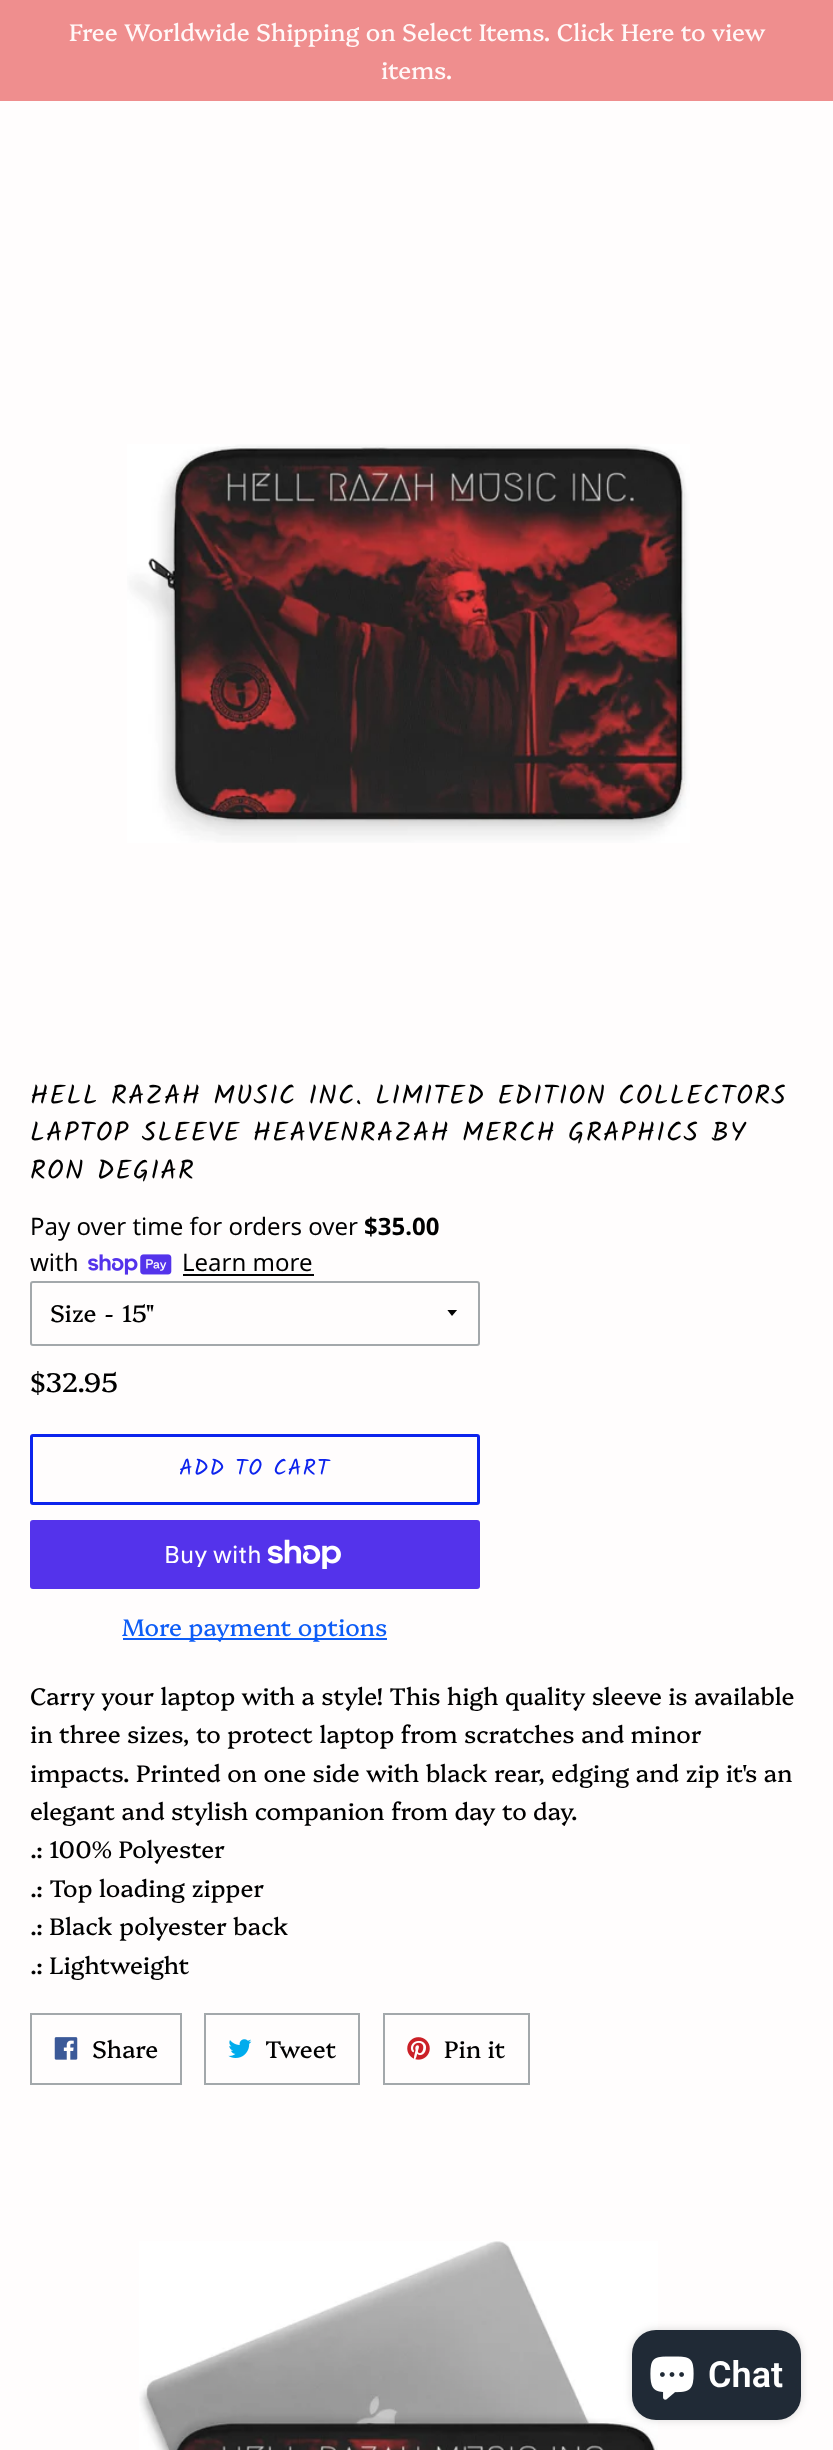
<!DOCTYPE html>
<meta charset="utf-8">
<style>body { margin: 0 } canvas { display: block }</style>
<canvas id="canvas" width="833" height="2450"></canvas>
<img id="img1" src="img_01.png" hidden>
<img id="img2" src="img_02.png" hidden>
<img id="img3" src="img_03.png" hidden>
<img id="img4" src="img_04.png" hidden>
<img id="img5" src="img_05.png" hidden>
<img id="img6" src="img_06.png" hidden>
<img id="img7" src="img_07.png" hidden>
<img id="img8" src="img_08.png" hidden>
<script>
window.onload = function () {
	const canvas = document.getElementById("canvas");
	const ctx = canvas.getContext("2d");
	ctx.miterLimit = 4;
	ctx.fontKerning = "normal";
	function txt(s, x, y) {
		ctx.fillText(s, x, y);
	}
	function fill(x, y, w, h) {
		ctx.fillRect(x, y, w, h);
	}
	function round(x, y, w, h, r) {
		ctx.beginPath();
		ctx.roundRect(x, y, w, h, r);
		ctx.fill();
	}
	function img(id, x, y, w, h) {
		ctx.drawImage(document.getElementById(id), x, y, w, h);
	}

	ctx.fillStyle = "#FFFDFD";
	fill(0, 0, 833, 2450);
	ctx.fillStyle = "#EF8E8E";
	fill(0, 0, 833, 101);
	img("img1", 127, 444, 563, 399);
	img("img2", 88, 1254, 84, 21);
	ctx.fillStyle = "#030303";
	fill(183, 1274, 131, 2);
	ctx.beginPath();
	ctx.roundRect(31, 1282, 448, 63, 2);
	ctx.strokeStyle = "#A3A8AB";
	ctx.lineWidth = 2;
	ctx.stroke();
	ctx.save();
	ctx.beginPath();
	ctx.rect(447, 1310, 12, 7);
	ctx.clip();
	ctx.beginPath();
	ctx.moveTo(447, 1309.5);
	ctx.lineTo(452, 1316);
	ctx.lineTo(457.5, 1309.5);
	ctx.closePath();
	ctx.fill();
	ctx.restore();
	ctx.beginPath();
	ctx.roundRect(31.5, 1435.5, 447, 68, 1.5);
	ctx.strokeStyle = "#0D24ED";
	ctx.lineWidth = 3;
	ctx.stroke();
	ctx.fillStyle = "#5433EB";
	round(30, 1520, 450, 69, 3);
	img("img3", 267, 1539, 74, 30);
	ctx.fillStyle = "#0E5DF7";
	fill(123, 1638, 264, 2);
	ctx.strokeStyle = "#A3A8AB";
	ctx.lineWidth = 2;
	ctx.strokeRect(31, 2014, 150, 70);
	img("img4", 54, 2037, 24, 23);
	ctx.strokeRect(205, 2014, 154, 70);
	img("img5", 228, 2039, 24, 19);
	ctx.strokeRect(384, 2014, 145, 70);
	img("img6", 407, 2037, 23, 23);
	img("img7", 139, 2241, 519, 209);
	ctx.fillStyle = "rgba(0, 0, 0, 0.15)";
	ctx.filter = "blur(4px)";
	ctx.beginPath();
	ctx.roundRect(632, 2330, 169, 90, 24);
	ctx.fill();
	ctx.filter = "none";
	ctx.fillStyle = "#202A36";
	round(632, 2330, 169, 90, 24);
	img("img8", 650, 2356, 44, 44);
	ctx.font = "24px Platypi";
	ctx.fillStyle = "#FFF8F8";
	txt("Free Worldwide Shipping on Select Items. Click Here to view", 69, 41);
	txt("items.", 381, 79);
	ctx.letterSpacing = "1.35px";
	ctx.font = "27px Kalam";
	ctx.fillStyle = "#000000";
	txt("HELL RAZAH MUSIC INC. LIMITED EDITION COLLECTORS", 30, 1104);
	txt("LAPTOP SLEEVE HEAVENRAZAH MERCH GRAPHICS BY", 30, 1141);
	txt("RON DEGIAR", 30, 1179);
	ctx.letterSpacing = "0px";
	ctx.font = "24px Noto Sans";
	txt("Pay over time for orders over", 30, 1235);
	ctx.font = "bold 24px Noto Sans";
	txt("$35.00", 364, 1235);
	ctx.font = "24px Noto Sans";
	txt("with", 30, 1271);
	txt("Learn more", 182, 1271);
	ctx.font = "24px Platypi";
	txt("Size", 50, 1322);
	txt("-", 105, 1322);
	txt("15\"", 122, 1322);
	ctx.font = "27px Platypi";
	txt("$32.95", 30, 1392);
	ctx.letterSpacing = "1.1px";
	ctx.font = "22.5px Kalam";
	ctx.fillStyle = "#0D24ED";
	txt("ADD TO CART", 179, 1475);
	ctx.letterSpacing = "0px";
	ctx.font = "24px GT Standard";
	ctx.fillStyle = "#FFFFFF";
	txt("Buy with", 164, 1563);
	ctx.font = "24px Platypi";
	ctx.fillStyle = "#0E5DF7";
	txt("More payment options", 122, 1636);
	ctx.fillStyle = "#000000";
	txt("Carry your laptop with a style! This high quality sleeve is available", 30, 1705);
	txt("in three sizes, to protect laptop from scratches and minor", 30, 1743);
	txt("impacts. Printed on one side with black rear, edging and zip it's an", 30, 1782);
	txt("elegant and stylish companion from day to day.", 30, 1820);
	txt(".: 100% Polyester", 30, 1858);
	txt(".: Top loading zipper", 30, 1897);
	txt(".: Black polyester back", 30, 1935);
	txt(".: Lightweight", 30, 1974);
	txt("Share", 92, 2058);
	txt("Tweet", 265, 2058);
	txt("Pin it", 444, 2058);
	ctx.font = "600 36px Roboto";
	ctx.fillStyle = "#FFFFFF";
	txt("Chat", 708, 2387);
};
</script>
